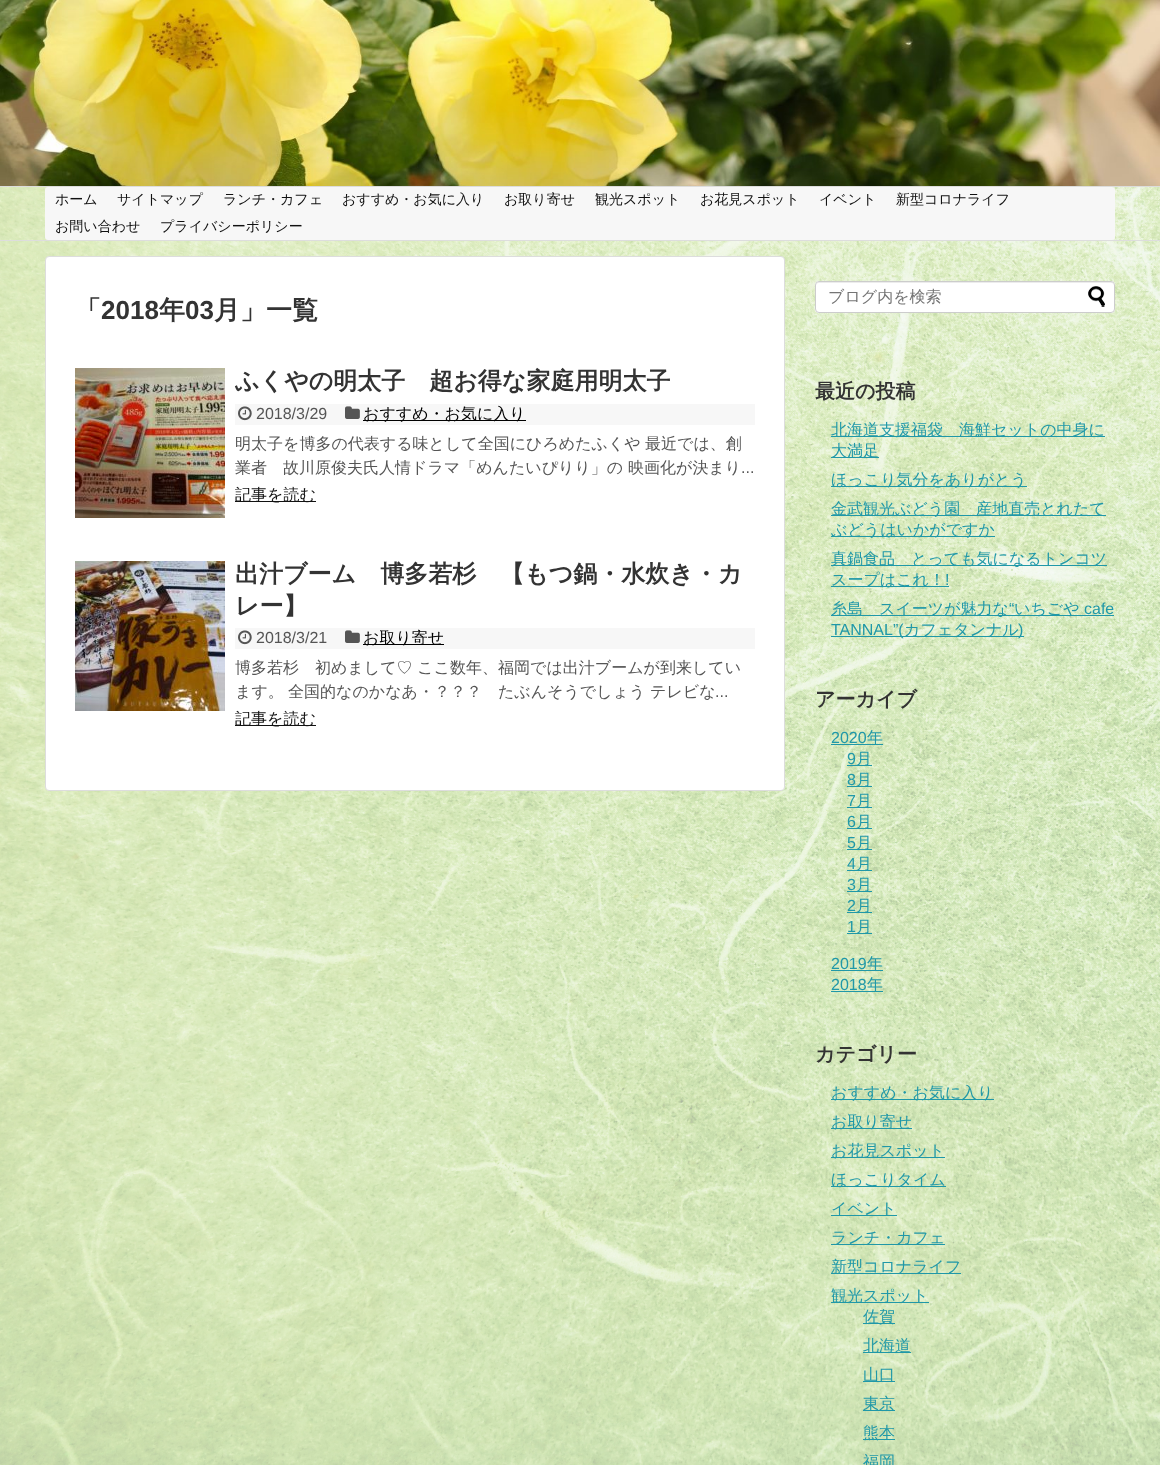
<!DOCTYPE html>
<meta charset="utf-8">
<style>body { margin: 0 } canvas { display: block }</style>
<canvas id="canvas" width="1160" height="1465"></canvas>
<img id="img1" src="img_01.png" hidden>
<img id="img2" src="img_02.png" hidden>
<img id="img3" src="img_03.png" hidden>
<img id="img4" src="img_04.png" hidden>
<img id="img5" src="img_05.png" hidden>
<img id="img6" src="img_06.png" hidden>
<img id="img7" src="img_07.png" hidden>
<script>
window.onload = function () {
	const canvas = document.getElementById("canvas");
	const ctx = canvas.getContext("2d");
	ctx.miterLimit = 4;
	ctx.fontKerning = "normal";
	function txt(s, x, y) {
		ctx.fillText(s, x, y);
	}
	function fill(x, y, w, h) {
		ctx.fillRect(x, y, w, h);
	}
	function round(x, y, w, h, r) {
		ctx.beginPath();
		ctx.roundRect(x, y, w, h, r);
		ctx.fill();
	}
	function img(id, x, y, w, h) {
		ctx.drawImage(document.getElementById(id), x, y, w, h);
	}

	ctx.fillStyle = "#FFFFFF";
	fill(0, 0, 1160, 1465);
	img("img1", 0, 187, 1160, 1278);
	img("img2", 0, 0, 1160, 186);
	ctx.fillStyle = "#DDDDDD";
	fill(0, 186, 1160, 1);
	fill(0, 240, 1160, 1);
	ctx.fillStyle = "#F7F7F7";
	round(45, 187, 1070, 53, 3);
	ctx.fillStyle = "#FFFFFF";
	ctx.beginPath();
	ctx.roundRect(45.5, 256.5, 739, 534, 3.5);
	ctx.fill();
	ctx.strokeStyle = "#DDDDDD";
	ctx.stroke();
	img("img3", 75, 368, 150, 150);
	ctx.fillStyle = "#F7F7F7";
	fill(235, 404, 520, 21);
	img("img4", 238, 406, 14, 15);
	img("img5", 345, 406, 15, 13);
	ctx.fillStyle = "#000000";
	fill(363, 420, 163, 1);
	ctx.fillStyle = "#111111";
	fill(235, 501, 81, 1);
	img("img6", 75, 561, 150, 150);
	ctx.fillStyle = "#F7F7F7";
	fill(235, 628, 520, 21);
	img("img4", 238, 630, 14, 15);
	img("img5", 345, 630, 15, 13);
	ctx.fillStyle = "#000000";
	fill(363, 644, 81, 1);
	ctx.fillStyle = "#111111";
	fill(235, 725, 81, 1);
	ctx.fillStyle = "#FFFFFF";
	round(815, 281, 300, 32, 4);
	ctx.fillStyle = "#ECECEC";
	ctx.beginPath();
	ctx.moveTo(819, 283);
	ctx.lineTo(1111, 283);
	ctx.bezierCurveTo(1113, 283, 1114, 284, 1114, 286);
	ctx.lineTo(1113, 283);
	ctx.lineTo(1112, 282);
	ctx.lineTo(819, 282);
	ctx.bezierCurveTo(817, 282, 816, 284, 816, 286);
	ctx.bezierCurveTo(816, 284, 817, 283, 819, 283);
	ctx.closePath();
	ctx.fill();
	ctx.beginPath();
	ctx.roundRect(815.5, 281.5, 299, 31, 3.5);
	ctx.strokeStyle = "#CCCCCC";
	ctx.stroke();
	img("img7", 1088, 286, 17, 21);
	ctx.fillStyle = "#2098A8";
	fill(831, 436, 274, 1);
	fill(831, 457, 48, 1);
	fill(831, 486, 196, 1);
	fill(831, 515, 275, 1);
	fill(831, 536, 164, 1);
	fill(831, 565, 276, 1);
	fill(831, 586, 118, 1);
	fill(831, 615, 283, 1);
	fill(831, 636, 193, 1);
	fill(831, 744, 52, 1);
	fill(847, 765, 25, 1);
	fill(847, 786, 25, 1);
	fill(847, 807, 25, 1);
	fill(847, 828, 25, 1);
	fill(847, 849, 25, 1);
	fill(847, 870, 25, 1);
	fill(847, 891, 25, 1);
	fill(847, 912, 25, 1);
	fill(847, 933, 25, 1);
	fill(831, 970, 52, 1);
	fill(831, 991, 52, 1);
	fill(831, 1099, 163, 1);
	fill(831, 1128, 81, 1);
	fill(831, 1157, 114, 1);
	fill(831, 1186, 115, 1);
	fill(831, 1215, 66, 1);
	fill(831, 1244, 114, 1);
	fill(831, 1273, 130, 1);
	fill(831, 1302, 98, 1);
	fill(863, 1323, 32, 1);
	fill(863, 1352, 48, 1);
	fill(863, 1381, 32, 1);
	fill(863, 1410, 32, 1);
	fill(863, 1439, 32, 1);
	ctx.font = "500 14px WenQuanYi Zen Hei";
	ctx.fillStyle = "#111111";
	txt("ホーム", 55, 204);
	txt("サイトマップ", 117, 204);
	txt("ランチ・カフェ", 223, 204);
	txt("おすすめ・お気に入り", 342, 204);
	txt("お取り寄せ", 504, 204);
	txt("観光スポット", 595, 204);
	txt("お花見スポット", 700, 204);
	txt("イベント", 819, 204);
	txt("新型コロナライフ", 896, 204);
	txt("お問い合わせ", 55, 231);
	txt("プライバシーポリシー", 160, 231);
	ctx.font = "bold 26px WenQuanYi Zen Hei";
	ctx.fillStyle = "#333333";
	txt("「", 75, 319);
	ctx.font = "bold 26px Liberation Sans";
	txt("2018", 101, 319);
	ctx.font = "bold 26px WenQuanYi Zen Hei";
	txt("年", 159, 319);
	ctx.font = "bold 26px Liberation Sans";
	txt("03", 185, 319);
	ctx.font = "bold 26px WenQuanYi Zen Hei";
	txt("月」一覧", 214, 319);
	ctx.font = "bold 24px WenQuanYi Zen Hei";
	txt("ふくやの明太子　超お得な家庭用明太子", 235, 389);
	ctx.font = "16px Liberation Sans";
	ctx.fillStyle = "#555555";
	txt("2018/3/29", 256, 419);
	ctx.font = "500 16px WenQuanYi Zen Hei";
	ctx.fillStyle = "#000000";
	txt("おすすめ・お気に入り", 363, 419);
	ctx.fillStyle = "#555555";
	txt("明太子を博多の代表する味として全国にひろめたふくや", 235, 449);
	txt("最近では、創", 645, 449);
	txt("業者　故川原俊夫氏人情ドラマ「めんたいぴりり」の", 235, 473);
	txt("映画化が決まり", 628, 473);
	ctx.font = "16px Liberation Sans";
	txt("...", 741, 473);
	ctx.font = "500 16px WenQuanYi Zen Hei";
	ctx.fillStyle = "#111111";
	txt("記事を読む", 235, 500);
	ctx.font = "bold 24px WenQuanYi Zen Hei";
	ctx.fillStyle = "#333333";
	txt("出汁ブーム　博多若杉　【もつ鍋・水炊き・カ", 235, 582);
	txt("レー】", 235, 614);
	ctx.font = "16px Liberation Sans";
	ctx.fillStyle = "#555555";
	txt("2018/3/21", 256, 643);
	ctx.font = "500 16px WenQuanYi Zen Hei";
	ctx.fillStyle = "#000000";
	txt("お取り寄せ", 363, 643);
	ctx.fillStyle = "#555555";
	txt("博多若杉　初めまして♡ ここ数年、福岡では出汁ブームが到来してい", 235, 673);
	txt("ます。", 235, 697);
	txt("全国的なのかなあ・？？？　たぶんそうでしょう", 288, 697);
	txt("テレビな", 650, 697);
	ctx.font = "16px Liberation Sans";
	txt("...", 715, 697);
	ctx.font = "500 16px WenQuanYi Zen Hei";
	ctx.fillStyle = "#111111";
	txt("記事を読む", 235, 724);
	ctx.fillStyle = "#757575";
	txt("ブログ内を検索", 828, 302);
	ctx.font = "bold 20px WenQuanYi Zen Hei";
	ctx.fillStyle = "#333333";
	txt("最近の投稿", 815, 398);
	ctx.font = "500 16px WenQuanYi Zen Hei";
	ctx.fillStyle = "#2098A8";
	txt("北海道支援福袋　海鮮セットの中身に", 831, 435);
	txt("大満足", 831, 456);
	txt("ほっこり気分をありがとう", 831, 485);
	txt("金武観光ぶどう園　産地直売とれたて", 831, 514);
	txt("ぶどうはいかがですか", 831, 535);
	txt("真鍋食品　とっても気になるトンコツ", 831, 564);
	txt("スープはこれ！", 831, 585);
	ctx.font = "16px Liberation Sans";
	txt("!", 945, 585);
	ctx.font = "500 16px WenQuanYi Zen Hei";
	txt("糸島　スイーツが魅力な", 831, 614);
	ctx.font = "16px Liberation Sans";
	txt("“", 1009, 614);
	ctx.font = "500 16px WenQuanYi Zen Hei";
	txt("いちごや", 1014, 614);
	ctx.font = "16px Liberation Sans";
	txt("cafe", 1084, 614);
	txt("TANNAL”(", 831, 635);
	ctx.font = "500 16px WenQuanYi Zen Hei";
	txt("カフェタンナル", 904, 635);
	ctx.font = "16px Liberation Sans";
	txt(")", 1018, 635);
	ctx.font = "bold 20px WenQuanYi Zen Hei";
	ctx.fillStyle = "#333333";
	txt("アーカイブ", 815, 706);
	ctx.font = "16px Liberation Sans";
	ctx.fillStyle = "#2098A8";
	txt("2020", 831, 743);
	ctx.font = "500 16px WenQuanYi Zen Hei";
	txt("年", 867, 743);
	ctx.font = "16px Liberation Sans";
	txt("9", 847, 764);
	ctx.font = "500 16px WenQuanYi Zen Hei";
	txt("月", 856, 764);
	ctx.font = "16px Liberation Sans";
	txt("8", 847, 785);
	ctx.font = "500 16px WenQuanYi Zen Hei";
	txt("月", 856, 785);
	ctx.font = "16px Liberation Sans";
	txt("7", 847, 806);
	ctx.font = "500 16px WenQuanYi Zen Hei";
	txt("月", 856, 806);
	ctx.font = "16px Liberation Sans";
	txt("6", 847, 827);
	ctx.font = "500 16px WenQuanYi Zen Hei";
	txt("月", 856, 827);
	ctx.font = "16px Liberation Sans";
	txt("5", 847, 848);
	ctx.font = "500 16px WenQuanYi Zen Hei";
	txt("月", 856, 848);
	ctx.font = "16px Liberation Sans";
	txt("4", 847, 869);
	ctx.font = "500 16px WenQuanYi Zen Hei";
	txt("月", 856, 869);
	ctx.font = "16px Liberation Sans";
	txt("3", 847, 890);
	ctx.font = "500 16px WenQuanYi Zen Hei";
	txt("月", 856, 890);
	ctx.font = "16px Liberation Sans";
	txt("2", 847, 911);
	ctx.font = "500 16px WenQuanYi Zen Hei";
	txt("月", 856, 911);
	ctx.font = "16px Liberation Sans";
	txt("1", 847, 932);
	ctx.font = "500 16px WenQuanYi Zen Hei";
	txt("月", 856, 932);
	ctx.font = "16px Liberation Sans";
	txt("2019", 831, 969);
	ctx.font = "500 16px WenQuanYi Zen Hei";
	txt("年", 867, 969);
	ctx.font = "16px Liberation Sans";
	txt("2018", 831, 990);
	ctx.font = "500 16px WenQuanYi Zen Hei";
	txt("年", 867, 990);
	ctx.font = "bold 20px WenQuanYi Zen Hei";
	ctx.fillStyle = "#333333";
	txt("カテゴリー", 815, 1061);
	ctx.font = "500 16px WenQuanYi Zen Hei";
	ctx.fillStyle = "#2098A8";
	txt("おすすめ・お気に入り", 831, 1098);
	txt("お取り寄せ", 831, 1127);
	txt("お花見スポット", 831, 1156);
	txt("ほっこりタイム", 831, 1185);
	txt("イベント", 831, 1214);
	txt("ランチ・カフェ", 831, 1243);
	txt("新型コロナライフ", 831, 1272);
	txt("観光スポット", 831, 1301);
	txt("佐賀", 863, 1322);
	txt("北海道", 863, 1351);
	txt("山口", 863, 1380);
	txt("東京", 863, 1409);
	txt("熊本", 863, 1438);
	txt("福岡", 863, 1467);
};
</script>
